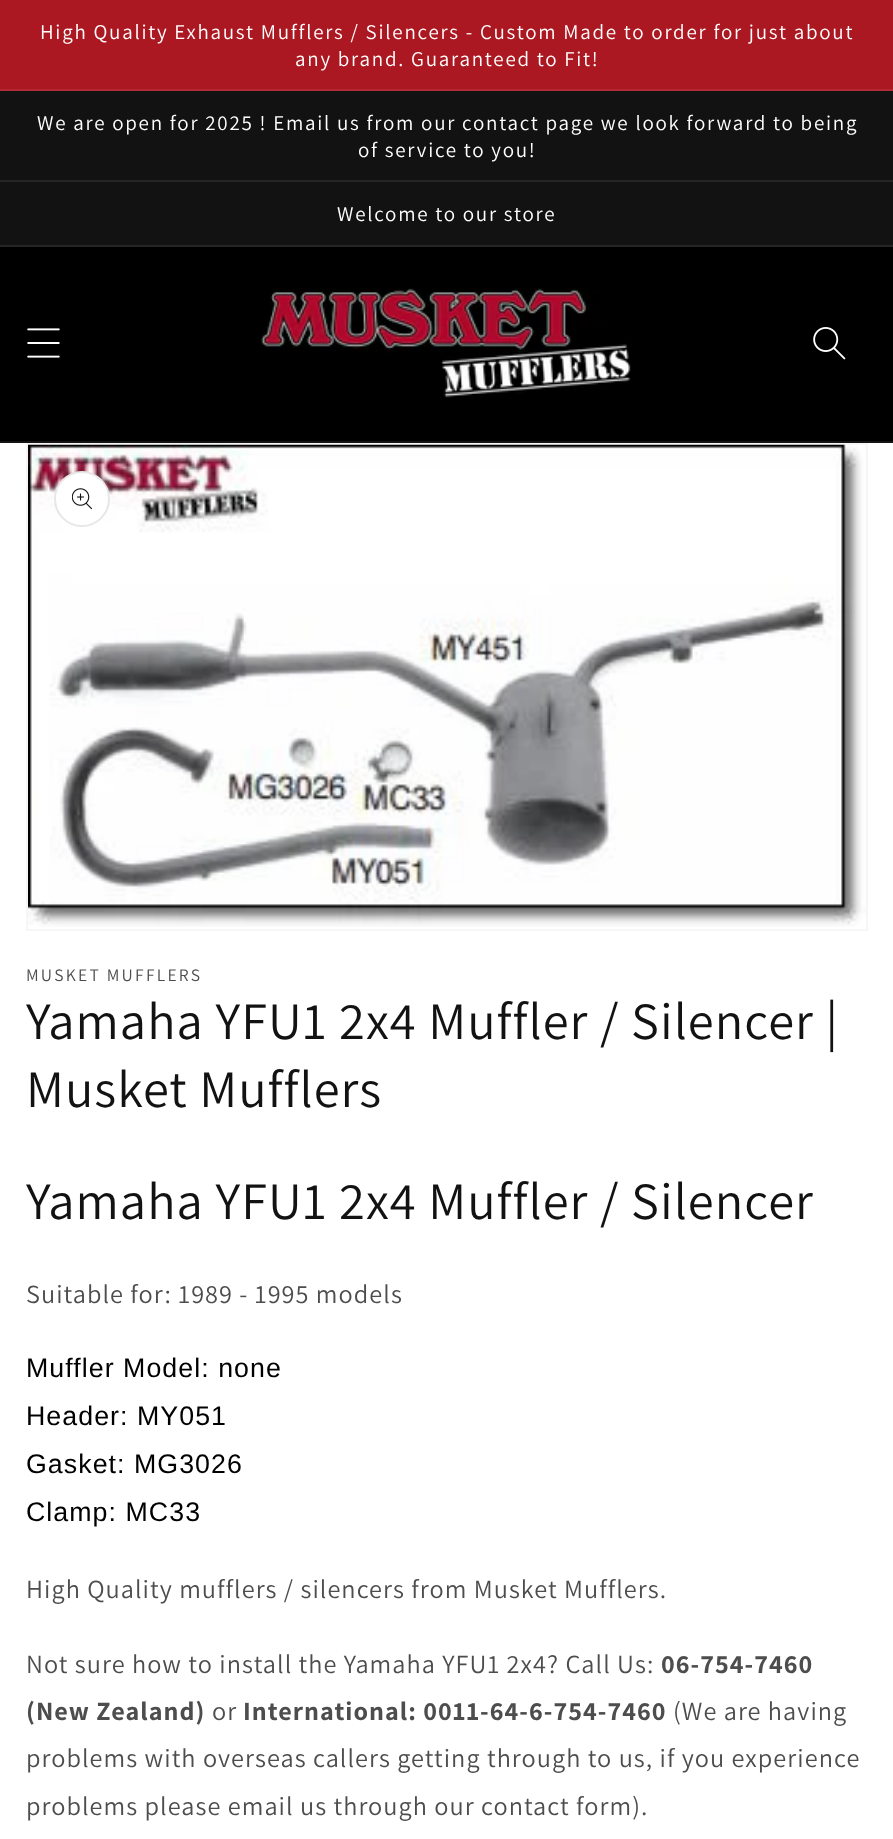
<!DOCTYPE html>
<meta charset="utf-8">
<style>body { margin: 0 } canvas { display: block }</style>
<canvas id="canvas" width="893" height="1839"></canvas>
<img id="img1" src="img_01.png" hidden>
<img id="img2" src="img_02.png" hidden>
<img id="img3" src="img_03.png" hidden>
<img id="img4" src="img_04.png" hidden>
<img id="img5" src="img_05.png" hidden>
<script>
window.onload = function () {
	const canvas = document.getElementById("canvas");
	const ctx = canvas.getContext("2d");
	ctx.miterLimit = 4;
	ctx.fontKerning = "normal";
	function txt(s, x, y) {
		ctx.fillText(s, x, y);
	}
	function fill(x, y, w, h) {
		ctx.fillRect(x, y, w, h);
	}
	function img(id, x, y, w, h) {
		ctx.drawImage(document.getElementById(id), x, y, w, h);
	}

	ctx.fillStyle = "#FFFFFF";
	fill(0, 0, 893, 1839);
	ctx.fillStyle = "#AB1821";
	fill(0, 0, 893, 89);
	ctx.fillStyle = "#B22A33";
	fill(0, 89, 893, 2);
	ctx.fillStyle = "#121212";
	fill(0, 91, 893, 89);
	ctx.fillStyle = "#252525";
	fill(0, 180, 893, 2);
	ctx.fillStyle = "#121212";
	fill(0, 182, 893, 63);
	ctx.fillStyle = "#252525";
	fill(0, 245, 893, 2);
	ctx.fillStyle = "#000000";
	fill(0, 247, 893, 194);
	ctx.fillStyle = "#141414";
	fill(0, 441, 893, 2);
	img("img1", 27, 328, 33, 30);
	img("img2", 261, 288, 370, 110);
	img("img3", 813, 327, 33, 33);
	ctx.strokeStyle = "#F6F6F6";
	ctx.lineWidth = 2;
	ctx.strokeRect(27, 444, 840, 486);
	img("img4", 28, 444, 838, 483);
	ctx.fillStyle = "#FFFFFF";
	ctx.beginPath();
	ctx.arc(82, 499, 28, 0, Math.PI * 2);
	ctx.fill();
	ctx.beginPath();
	ctx.arc(82, 499, 27, 0, Math.PI * 2);
	ctx.strokeStyle = "rgba(18, 18, 18, 0.1)";
	ctx.stroke();
	img("img5", 72, 488, 20, 22);
	ctx.letterSpacing = "1.75px";
	ctx.font = "21px Assistant";
	txt("High Quality Exhaust Mufflers / Silencers - Custom Made to order for just about", 40, 39);
	txt("any brand. Guaranteed to Fit!", 295, 66);
	txt("We are open for 2025 ! Email us from our contact page we look forward to being", 37, 130);
	txt("of service to you!", 358, 157);
	txt("Welcome to our store", 337, 221);
	ctx.letterSpacing = "2.25px";
	ctx.font = "17.5px Assistant";
	ctx.fillStyle = "#4D4D4D";
	txt("MUSKET MUFFLERS", 26, 981);
	ctx.letterSpacing = "1.05px";
	ctx.font = "52.5px Assistant";
	ctx.fillStyle = "#121212";
	txt("Yamaha YFU1 2x4 Muffler / Silencer |", 26, 1039);
	txt("Musket Mufflers", 26, 1107);
	txt("Yamaha YFU1 2x4 Muffler / Silencer", 26, 1219);
	ctx.font = "26.25px Assistant";
	ctx.fillStyle = "#4D4D4D";
	txt("Suitable for: 1989 - 1995 models", 26, 1303);
	ctx.font = "26.75px Liberation Sans";
	ctx.fillStyle = "#000000";
	txt("Muffler Model: none", 26, 1377);
	txt("Header: MY051", 26, 1425);
	txt("Gasket: MG3026", 26, 1473);
	txt("Clamp: MC33", 26, 1521);
	ctx.font = "26.25px Assistant";
	ctx.fillStyle = "#4D4D4D";
	txt("High Quality mufflers / silencers from Musket Mufflers.", 26, 1598);
	txt("Not sure how to install the Yamaha YFU1 2x4? Call Us:", 26, 1673);
	ctx.font = "bold 26.25px Assistant";
	txt("06-754-7460", 661, 1673);
	txt("(New Zealand)", 26, 1720);
	ctx.font = "26.25px Assistant";
	txt("or", 212, 1720);
	ctx.font = "bold 26.25px Assistant";
	txt("International: 0011-64-6-754-7460", 243, 1720);
	ctx.font = "26.25px Assistant";
	txt("(We are having", 673, 1720);
	txt("problems with overseas callers getting through to us, if you experience", 26, 1767);
	txt("problems please email us through our contact form).", 26, 1815);
};
</script>
